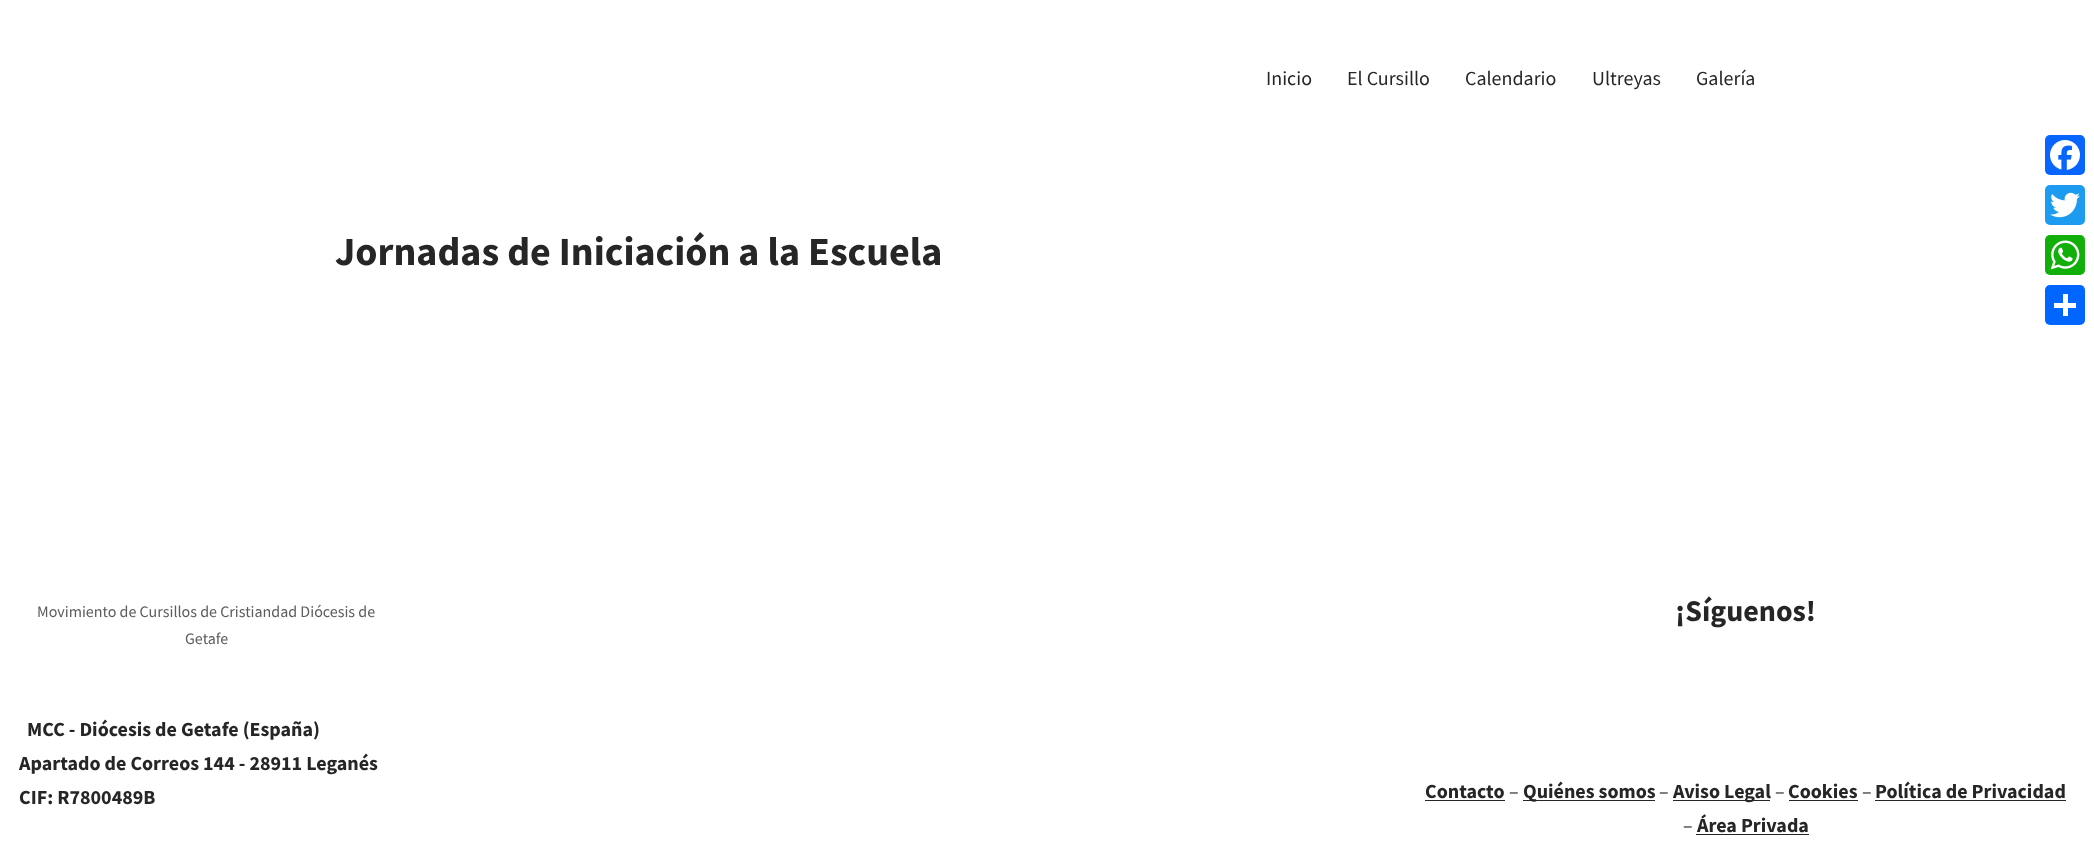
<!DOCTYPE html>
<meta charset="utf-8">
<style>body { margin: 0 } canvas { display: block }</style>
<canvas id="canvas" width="2094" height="852"></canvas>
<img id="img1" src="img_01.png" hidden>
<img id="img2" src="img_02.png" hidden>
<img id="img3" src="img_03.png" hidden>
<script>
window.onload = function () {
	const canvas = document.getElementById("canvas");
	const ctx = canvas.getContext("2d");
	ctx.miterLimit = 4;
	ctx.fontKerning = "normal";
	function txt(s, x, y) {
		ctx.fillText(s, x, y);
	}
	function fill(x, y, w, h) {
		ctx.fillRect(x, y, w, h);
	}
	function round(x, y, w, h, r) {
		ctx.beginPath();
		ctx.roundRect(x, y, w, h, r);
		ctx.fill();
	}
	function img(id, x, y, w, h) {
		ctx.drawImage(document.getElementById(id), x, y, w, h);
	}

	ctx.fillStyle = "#FFFFFF";
	fill(0, 0, 2094, 852);
	ctx.fillStyle = "#272626";
	fill(1425, 800, 80, 1);
	fill(1523, 800, 132, 1);
	fill(1673, 800, 97, 1);
	fill(1789, 800, 69, 1);
	fill(1875, 800, 191, 1);
	fill(1696, 834, 113, 1);
	ctx.fillStyle = "#0866FF";
	round(2045, 135, 40, 40, 5);
	img("img1", 2050, 140, 30, 30);
	ctx.fillStyle = "#1D9BF0";
	round(2045, 185, 40, 40, 5);
	img("img2", 2050, 192, 30, 26);
	ctx.fillStyle = "#12AF0A";
	round(2045, 235, 40, 40, 5);
	img("img3", 2050, 240, 30, 30);
	ctx.fillStyle = "#0166FF";
	round(2045, 285, 40, 40, 5);
	ctx.fillStyle = "#FFFFFF";
	fill(2063, 294, 5, 22);
	fill(2054, 303, 22, 5);
	ctx.font = "20px Source Sans Pro";
	ctx.fillStyle = "#272626";
	txt("Inicio", 1266, 85);
	txt("El Cursillo", 1347, 85);
	txt("Calendario", 1465, 85);
	txt("Ultreyas", 1592, 85);
	txt("Galería", 1696, 85);
	ctx.font = "bold 40px Source Sans Pro";
	txt("Jornadas de Iniciación a la Escuela", 335, 265);
	ctx.font = "16px Source Sans Pro";
	ctx.fillStyle = "#5D5C5C";
	txt("Movimiento de Cursillos de Cristiandad Diócesis de", 37, 617);
	txt("Getafe", 185, 644);
	ctx.font = "bold 20px Source Sans Pro";
	ctx.fillStyle = "#272626";
	txt("MCC - Diócesis de Getafe (España)", 27, 736);
	txt("Apartado de Correos 144 - 28911 Leganés", 19, 770);
	txt("CIF: R7800489B", 19, 804);
	ctx.font = "bold 30px Source Sans Pro";
	txt("¡Síguenos!", 1675, 621);
	ctx.font = "bold 20px Source Sans Pro";
	txt("Contacto", 1425, 798);
	ctx.font = "20px Source Sans Pro";
	txt("–", 1509, 798);
	ctx.font = "bold 20px Source Sans Pro";
	txt("Quiénes somos", 1523, 798);
	ctx.font = "20px Source Sans Pro";
	txt("–", 1659, 798);
	ctx.font = "bold 20px Source Sans Pro";
	txt("Aviso Legal", 1673, 798);
	ctx.font = "20px Source Sans Pro";
	txt("–", 1775, 798);
	ctx.font = "bold 20px Source Sans Pro";
	txt("Cookies", 1788, 798);
	ctx.font = "20px Source Sans Pro";
	txt("–", 1862, 798);
	ctx.font = "bold 20px Source Sans Pro";
	txt("Política de Privacidad", 1875, 798);
	ctx.font = "20px Source Sans Pro";
	txt("–", 1683, 832);
	ctx.font = "bold 20px Source Sans Pro";
	txt("Área Privada", 1697, 832);
};
</script>
